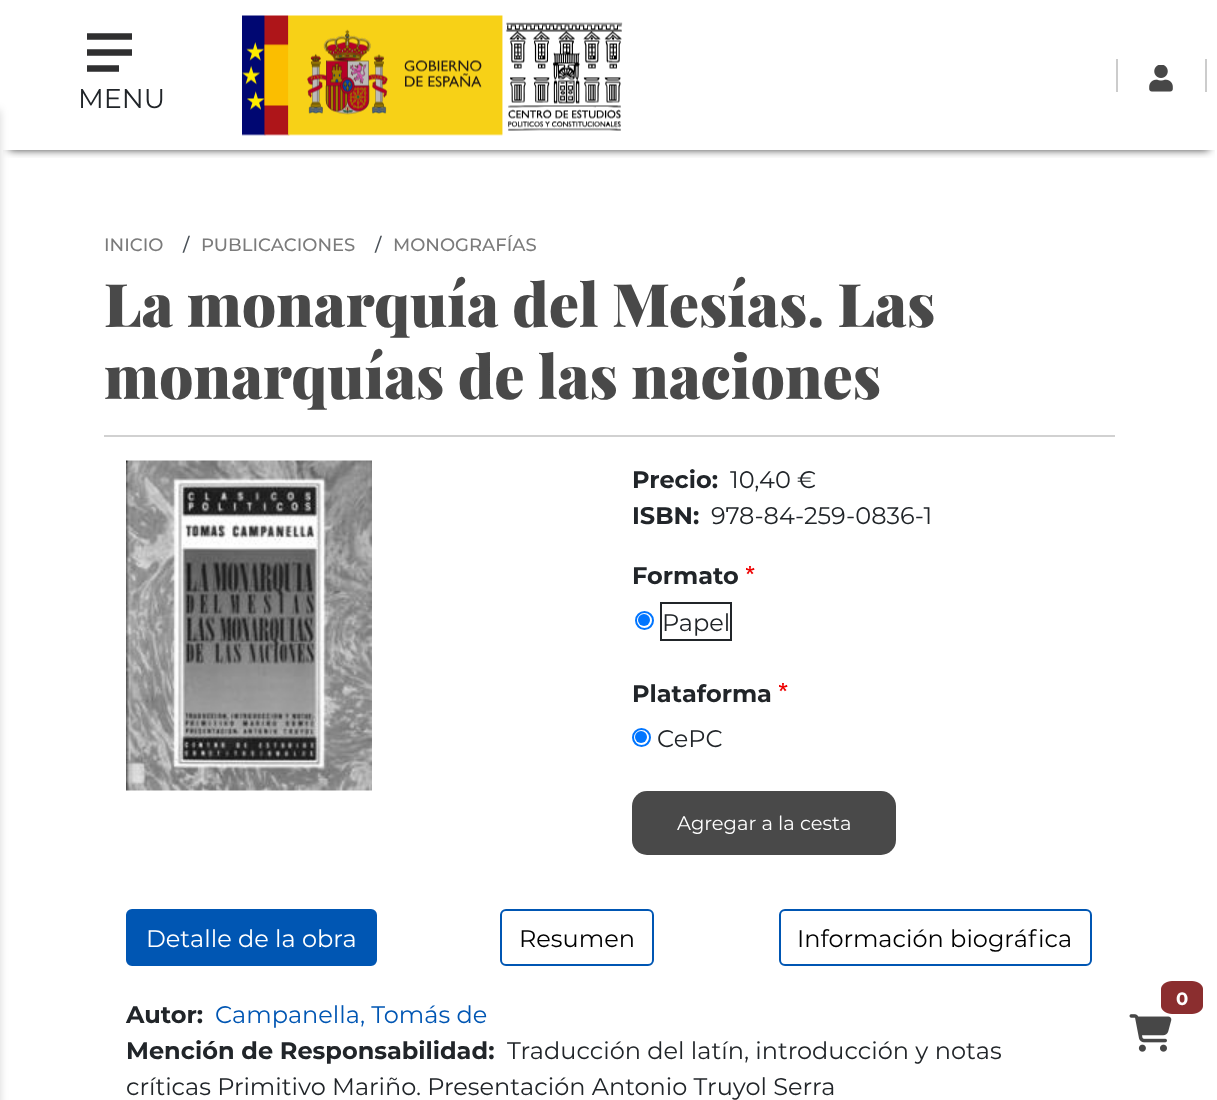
<!DOCTYPE html>
<meta charset="utf-8">
<style>body { margin: 0 } canvas { display: block }</style>
<canvas id="canvas" width="1217" height="1100"></canvas>
<img id="img1" src="img_01.png" hidden>
<img id="img2" src="img_02.png" hidden>
<img id="img3" src="img_03.png" hidden>
<img id="img4" src="img_04.png" hidden>
<img id="img5" src="img_05.png" hidden>
<img id="img6" src="img_06.png" hidden>
<script>
window.onload = function () {
	const canvas = document.getElementById("canvas");
	const ctx = canvas.getContext("2d");
	ctx.miterLimit = 4;
	ctx.fontKerning = "normal";
	function txt(s, x, y) {
		ctx.fillText(s, x, y);
	}
	function fill(x, y, w, h) {
		ctx.fillRect(x, y, w, h);
	}
	function round(x, y, w, h, r) {
		ctx.beginPath();
		ctx.roundRect(x, y, w, h, r);
		ctx.fill();
	}
	function img(id, x, y, w, h) {
		ctx.drawImage(document.getElementById(id), x, y, w, h);
	}

	ctx.fillStyle = "#FFFFFF";
	fill(0, 0, 1217, 1100);
	ctx.save();
	ctx.beginPath();
	ctx.rect(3, 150, 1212, 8);
	ctx.clip();
	ctx.fillStyle = "rgba(0, 0, 0, 0.75)";
	ctx.filter = "blur(4px)";
	ctx.beginPath();
	ctx.rect(9, 18, 1200, 132);
	ctx.fill();
	ctx.filter = "none";
	ctx.restore();
	img("img1", 242, 15, 261, 121);
	img("img2", 506, 22, 117, 109);
	ctx.fillStyle = "#CCCCCC";
	fill(1116, 59, 2, 33);
	img("img3", 1149, 65, 24, 27);
	fill(1205, 59, 2, 33);
	ctx.fillStyle = "rgba(0, 0, 0, 0.16)";
	ctx.filter = "blur(4.5px)";
	ctx.beginPath();
	ctx.rect(-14, 110, 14, 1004);
	ctx.fill();
	ctx.filter = "none";
	ctx.beginPath();
	ctx.moveTo(87, 36.5);
	ctx.lineTo(132, 36.5);
	ctx.moveTo(87, 52.5);
	ctx.lineTo(132, 52.5);
	ctx.moveTo(87, 68.5);
	ctx.lineTo(119, 68.5);
	ctx.strokeStyle = "#2F2F30";
	ctx.lineWidth = 6.4;
	ctx.stroke();
	ctx.fillStyle = "#D1D1D1";
	fill(104, 435, 1011, 2);
	img("img4", 126, 460, 246, 331);
	img("img5", 746, 566, 9, 9);
	ctx.beginPath();
	ctx.arc(644.5, 620.5, 8.5, 0, Math.PI * 2);
	ctx.strokeStyle = "#0075FF";
	ctx.lineWidth = 2;
	ctx.stroke();
	ctx.fillStyle = "#0075FF";
	ctx.beginPath();
	ctx.arc(644, 620, 6, 0, Math.PI * 2);
	ctx.fill();
	ctx.strokeStyle = "#212529";
	ctx.strokeRect(661, 603, 70, 37);
	img("img5", 779, 683, 9, 9);
	ctx.beginPath();
	ctx.arc(641.5, 737.5, 8.5, 0, Math.PI * 2);
	ctx.strokeStyle = "#0075FF";
	ctx.stroke();
	ctx.beginPath();
	ctx.arc(641, 737, 6, 0, Math.PI * 2);
	ctx.fill();
	ctx.fillStyle = "#494949";
	round(632, 791, 264, 64, 15);
	ctx.fillStyle = "#0056B3";
	ctx.beginPath();
	ctx.roundRect(127, 910, 249, 55, 5);
	ctx.fill();
	ctx.strokeStyle = "#0056B3";
	ctx.stroke();
	ctx.beginPath();
	ctx.roundRect(501, 910, 152, 55, 5);
	ctx.stroke();
	ctx.beginPath();
	ctx.roundRect(780, 910, 311, 55, 5);
	ctx.stroke();
	ctx.fillStyle = "#8B2E2F";
	ctx.beginPath();
	ctx.moveTo(1172, 981);
	ctx.lineTo(1192, 981);
	ctx.bezierCurveTo(1198, 981, 1203, 985, 1203, 989);
	ctx.lineTo(1203, 1006);
	ctx.bezierCurveTo(1203, 1010, 1198, 1014, 1192, 1014);
	ctx.lineTo(1172, 1014);
	ctx.bezierCurveTo(1166, 1014, 1161, 1010, 1161, 1006);
	ctx.lineTo(1161, 989);
	ctx.bezierCurveTo(1161, 985, 1166, 981, 1172, 981);
	ctx.closePath();
	ctx.fill();
	img("img6", 1129, 1014, 43, 38);
	ctx.font = "27px Montserrat";
	ctx.fillStyle = "#212529";
	txt("MENU", 78, 108);
	ctx.font = "500 18px Montserrat";
	ctx.fillStyle = "#7B7B7B";
	txt("INICIO", 104, 251);
	ctx.fillStyle = "#495057";
	txt("/", 183, 251);
	ctx.fillStyle = "#7B7B7B";
	txt("PUBLICACIONES", 201, 251);
	ctx.fillStyle = "#495057";
	txt("/", 375, 251);
	ctx.fillStyle = "#7B7B7B";
	txt("MONOGRAFÍAS", 393, 251);
	ctx.font = "900 60px Playfair Display";
	ctx.fillStyle = "#494949";
	txt("La monarquía del Mesías. Las", 104, 327);
	txt("monarquías de las naciones", 104, 399);
	ctx.font = "bold 24px Montserrat";
	ctx.fillStyle = "#212529";
	txt("Precio:", 632, 488);
	ctx.font = "24px Montserrat";
	txt("10,40 €", 730, 488);
	ctx.font = "bold 24px Montserrat";
	txt("ISBN:", 632, 524);
	ctx.font = "24px Montserrat";
	txt("978-84-259-0836-1", 711, 524);
	ctx.font = "bold 24px Montserrat";
	txt("Formato", 632, 584);
	ctx.font = "24px Montserrat";
	txt("Papel", 662, 631);
	ctx.font = "bold 24px Montserrat";
	txt("Plataforma", 632, 702);
	ctx.font = "24px Montserrat";
	txt("CePC", 657, 747);
	ctx.font = "19.5px Montserrat";
	ctx.fillStyle = "#FFFFFF";
	txt("Agregar a la cesta", 677, 830);
	ctx.font = "24px Montserrat";
	txt("Detalle de la obra", 146, 947);
	ctx.fillStyle = "#000000";
	txt("Resumen", 519, 947);
	txt("Información biográfica", 797, 947);
	ctx.font = "bold 24px Montserrat";
	ctx.fillStyle = "#212529";
	txt("Autor:", 126, 1023);
	ctx.font = "24px Montserrat";
	ctx.fillStyle = "#0056B3";
	txt("Campanella, Tomás de", 215, 1023);
	ctx.font = "bold 24px Montserrat";
	ctx.fillStyle = "#212529";
	txt("Mención de Responsabilidad:", 126, 1059);
	ctx.font = "24px Montserrat";
	txt("Traducción del latín, introducción y notas", 507, 1059);
	txt("críticas Primitivo Mariño. Presentación Antonio Truyol Serra", 126, 1095);
	ctx.font = "bold 18px Montserrat";
	ctx.fillStyle = "#FFFFFF";
	txt("0", 1176, 1005);
};
</script>
